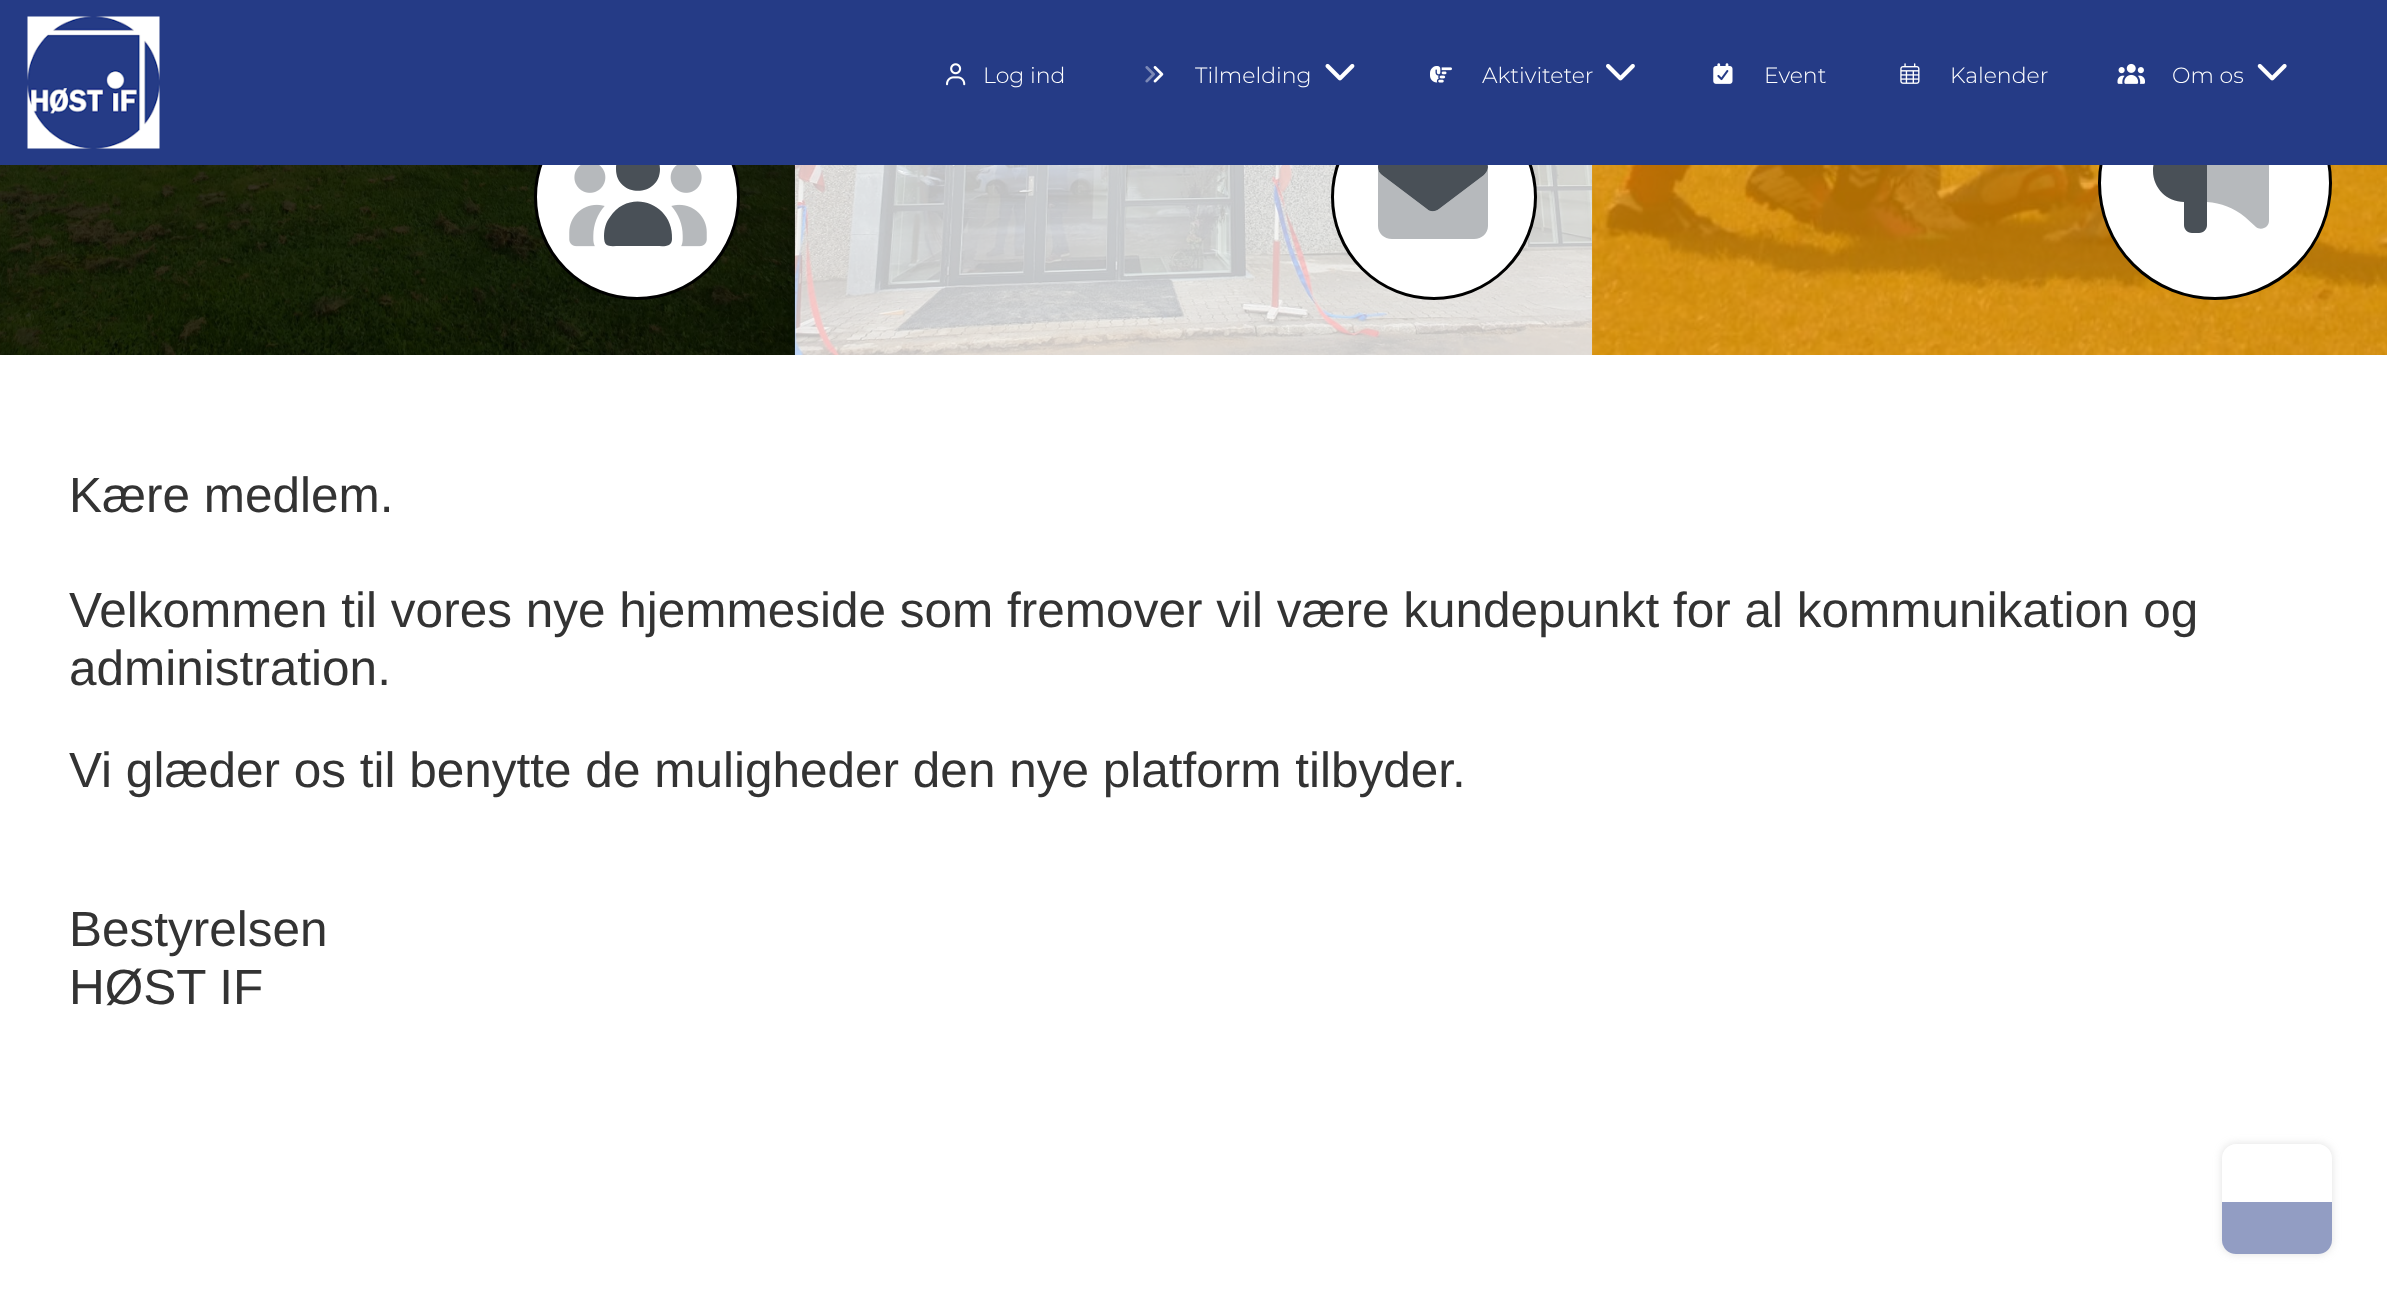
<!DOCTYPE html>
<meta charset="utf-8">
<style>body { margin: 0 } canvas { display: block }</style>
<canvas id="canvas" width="2387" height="1308"></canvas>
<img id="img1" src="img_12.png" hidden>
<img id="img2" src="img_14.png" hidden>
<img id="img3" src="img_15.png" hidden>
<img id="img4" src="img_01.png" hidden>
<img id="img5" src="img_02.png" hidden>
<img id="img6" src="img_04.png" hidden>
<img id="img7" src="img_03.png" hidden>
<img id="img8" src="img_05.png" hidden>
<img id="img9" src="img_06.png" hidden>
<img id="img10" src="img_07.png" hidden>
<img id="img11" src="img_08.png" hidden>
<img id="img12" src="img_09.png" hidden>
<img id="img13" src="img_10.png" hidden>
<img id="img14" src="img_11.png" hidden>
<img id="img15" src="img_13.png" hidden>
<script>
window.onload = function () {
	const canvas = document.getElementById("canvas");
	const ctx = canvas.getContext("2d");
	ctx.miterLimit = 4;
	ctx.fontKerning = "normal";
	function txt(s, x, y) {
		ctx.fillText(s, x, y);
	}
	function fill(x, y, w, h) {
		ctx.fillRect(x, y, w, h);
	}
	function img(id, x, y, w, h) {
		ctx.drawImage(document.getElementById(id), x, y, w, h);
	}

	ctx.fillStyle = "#FFFFFF";
	fill(0, 0, 2387, 1308);
	img("img1", 0, 165, 795, 190);
	img("img2", 794, 165, 799, 190);
	ctx.fillStyle = "rgba(0, 0, 0, 0.75)";
	fill(0, 165, 795, 190);
	ctx.fillStyle = "#FFFFFF";
	ctx.beginPath();
	ctx.arc(637, 197, 101.5, 0, Math.PI * 2);
	ctx.fill();
	ctx.strokeStyle = "#000000";
	ctx.lineWidth = 3;
	ctx.stroke();
	ctx.fillStyle = "#495057";
	ctx.beginPath();
	ctx.moveTo(604, 236);
	ctx.bezierCurveTo(604, 229, 606, 222, 610, 217);
	ctx.bezierCurveTo(630, 187, 674, 204, 672, 239);
	ctx.bezierCurveTo(672, 248, 662, 246, 656, 246);
	ctx.lineTo(620, 246);
	ctx.bezierCurveTo(609, 246, 604, 248, 604, 236);
	ctx.closePath();
	ctx.moveTo(616, 169);
	ctx.bezierCurveTo(616, 139, 660, 139, 660, 169);
	ctx.bezierCurveTo(660, 198, 616, 198, 616, 169);
	ctx.closePath();
	ctx.fill();
	ctx.fillStyle = "#FFFFFF";
	ctx.beginPath();
	ctx.arc(1434, 197, 101.5, 0, Math.PI * 2);
	ctx.fill();
	ctx.stroke();
	ctx.fillStyle = "#495057";
	ctx.beginPath();
	ctx.moveTo(1388, 157);
	ctx.bezierCurveTo(1382, 157, 1378, 161, 1378, 167);
	ctx.bezierCurveTo(1378, 170, 1379, 173, 1382, 175);
	ctx.lineTo(1427, 209);
	ctx.bezierCurveTo(1430, 212, 1435, 212, 1439, 209);
	ctx.lineTo(1484, 175);
	ctx.bezierCurveTo(1486, 173, 1488, 170, 1488, 167);
	ctx.bezierCurveTo(1488, 161, 1483, 157, 1477, 157);
	ctx.closePath();
	ctx.fill();
	img("img3", 1592, 165, 795, 190);
	ctx.fillStyle = "rgba(229, 143, 0, 0.75)";
	fill(1592, 165, 795, 190);
	ctx.fillStyle = "#FFFFFF";
	ctx.beginPath();
	ctx.arc(2215, 183, 115.5, 0, Math.PI * 2);
	ctx.fill();
	ctx.stroke();
	ctx.fillStyle = "#495057";
	ctx.beginPath();
	ctx.moveTo(2184, 140);
	ctx.bezierCurveTo(2167, 140, 2153, 154, 2153, 171);
	ctx.bezierCurveTo(2153, 188, 2167, 202, 2184, 202);
	ctx.lineTo(2184, 225);
	ctx.bezierCurveTo(2184, 229, 2187, 233, 2192, 233);
	ctx.lineTo(2199, 233);
	ctx.bezierCurveTo(2204, 233, 2207, 229, 2207, 225);
	ctx.lineTo(2207, 140);
	ctx.closePath();
	ctx.fill();
	ctx.fillStyle = "#B6B9BC";
	ctx.beginPath();
	ctx.moveTo(2207, 140);
	ctx.lineTo(2207, 202);
	ctx.bezierCurveTo(2221, 203, 2234, 208, 2245, 217);
	ctx.lineTo(2256, 227);
	ctx.bezierCurveTo(2258, 229, 2262, 229, 2264, 228);
	ctx.bezierCurveTo(2267, 227, 2269, 224, 2269, 221);
	ctx.lineTo(2269, 121);
	ctx.bezierCurveTo(2269, 118, 2267, 115, 2264, 114);
	ctx.bezierCurveTo(2262, 113, 2258, 113, 2256, 115);
	ctx.lineTo(2245, 125);
	ctx.bezierCurveTo(2234, 134, 2221, 140, 2207, 140);
	ctx.closePath();
	ctx.fill();
	ctx.fillStyle = "#253B86";
	fill(0, 0, 2387, 165);
	img("img4", 27, 16, 133, 133);
	img("img5", 946, 63, 20, 23);
	img("img6", 1153, 66, 11, 17);
	img("img7", 1145, 66, 10, 17);
	img("img8", 1325, 63, 30, 18);
	img("img9", 1430, 66, 22, 17);
	img("img10", 1606, 63, 29, 18);
	img("img11", 1713, 63, 20, 21);
	img("img12", 1900, 63, 20, 21);
	img("img13", 2117, 63, 28, 21);
	img("img14", 2257, 63, 30, 18);
	img("img15", 569, 165, 138, 82);
	ctx.fillStyle = "rgba(73, 80, 87, 0.4)";
	ctx.beginPath();
	ctx.moveTo(1378, 167);
	ctx.bezierCurveTo(1378, 170, 1379, 173, 1382, 175);
	ctx.lineTo(1427, 209);
	ctx.bezierCurveTo(1430, 212, 1435, 212, 1439, 209);
	ctx.lineTo(1484, 175);
	ctx.bezierCurveTo(1486, 173, 1488, 170, 1488, 167);
	ctx.lineTo(1488, 226);
	ctx.bezierCurveTo(1488, 233, 1482, 239, 1474, 239);
	ctx.lineTo(1392, 239);
	ctx.bezierCurveTo(1384, 239, 1378, 233, 1378, 226);
	ctx.closePath();
	ctx.fill();
	ctx.save();
	ctx.beginPath();
	ctx.moveTo(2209, 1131);
	ctx.lineTo(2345, 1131);
	ctx.lineTo(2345, 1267);
	ctx.lineTo(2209, 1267);
	ctx.closePath();
	ctx.moveTo(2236, 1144);
	ctx.lineTo(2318, 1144);
	ctx.bezierCurveTo(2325.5, 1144, 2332, 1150.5, 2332, 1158);
	ctx.lineTo(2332, 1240);
	ctx.bezierCurveTo(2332, 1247.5, 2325.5, 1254, 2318, 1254);
	ctx.lineTo(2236, 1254);
	ctx.bezierCurveTo(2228.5, 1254, 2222, 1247.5, 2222, 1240);
	ctx.lineTo(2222, 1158);
	ctx.bezierCurveTo(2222, 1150.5, 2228.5, 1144, 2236, 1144);
	ctx.closePath();
	ctx.clip("evenodd");
	ctx.fillStyle = "rgba(153, 153, 153, 0.3)";
	ctx.filter = "blur(4px)";
	ctx.beginPath();
	ctx.roundRect(2222, 1144, 110, 110, 14);
	ctx.fill();
	ctx.filter = "none";
	ctx.restore();
	ctx.fillStyle = "#929DC3";
	ctx.beginPath();
	ctx.roundRect(2222, 1202, 110, 52, [0, 0, 14, 14]);
	ctx.fill();
	ctx.font = "300 22px Montserrat";
	ctx.fillStyle = "#FFFFFF";
	txt("Log ind", 983, 83);
	txt("Tilmelding", 1195, 83);
	txt("Aktiviteter", 1482, 83);
	txt("Event", 1764, 83);
	txt("Kalender", 1950, 83);
	txt("Om os", 2172, 83);
	ctx.font = "49.5px Liberation Sans";
	ctx.fillStyle = "#333333";
	txt("Kære medlem.", 69, 512);
	txt("Velkommen til vores nye hjemmeside som fremover vil være kundepunkt for al kommunikation og", 69, 627);
	txt("administration.", 69, 685);
	txt("Vi glæder os til benytte de muligheder den nye platform tilbyder.", 69, 787);
	txt("Bestyrelsen", 69, 946);
	txt("HØST IF", 69, 1004);
};
</script>
